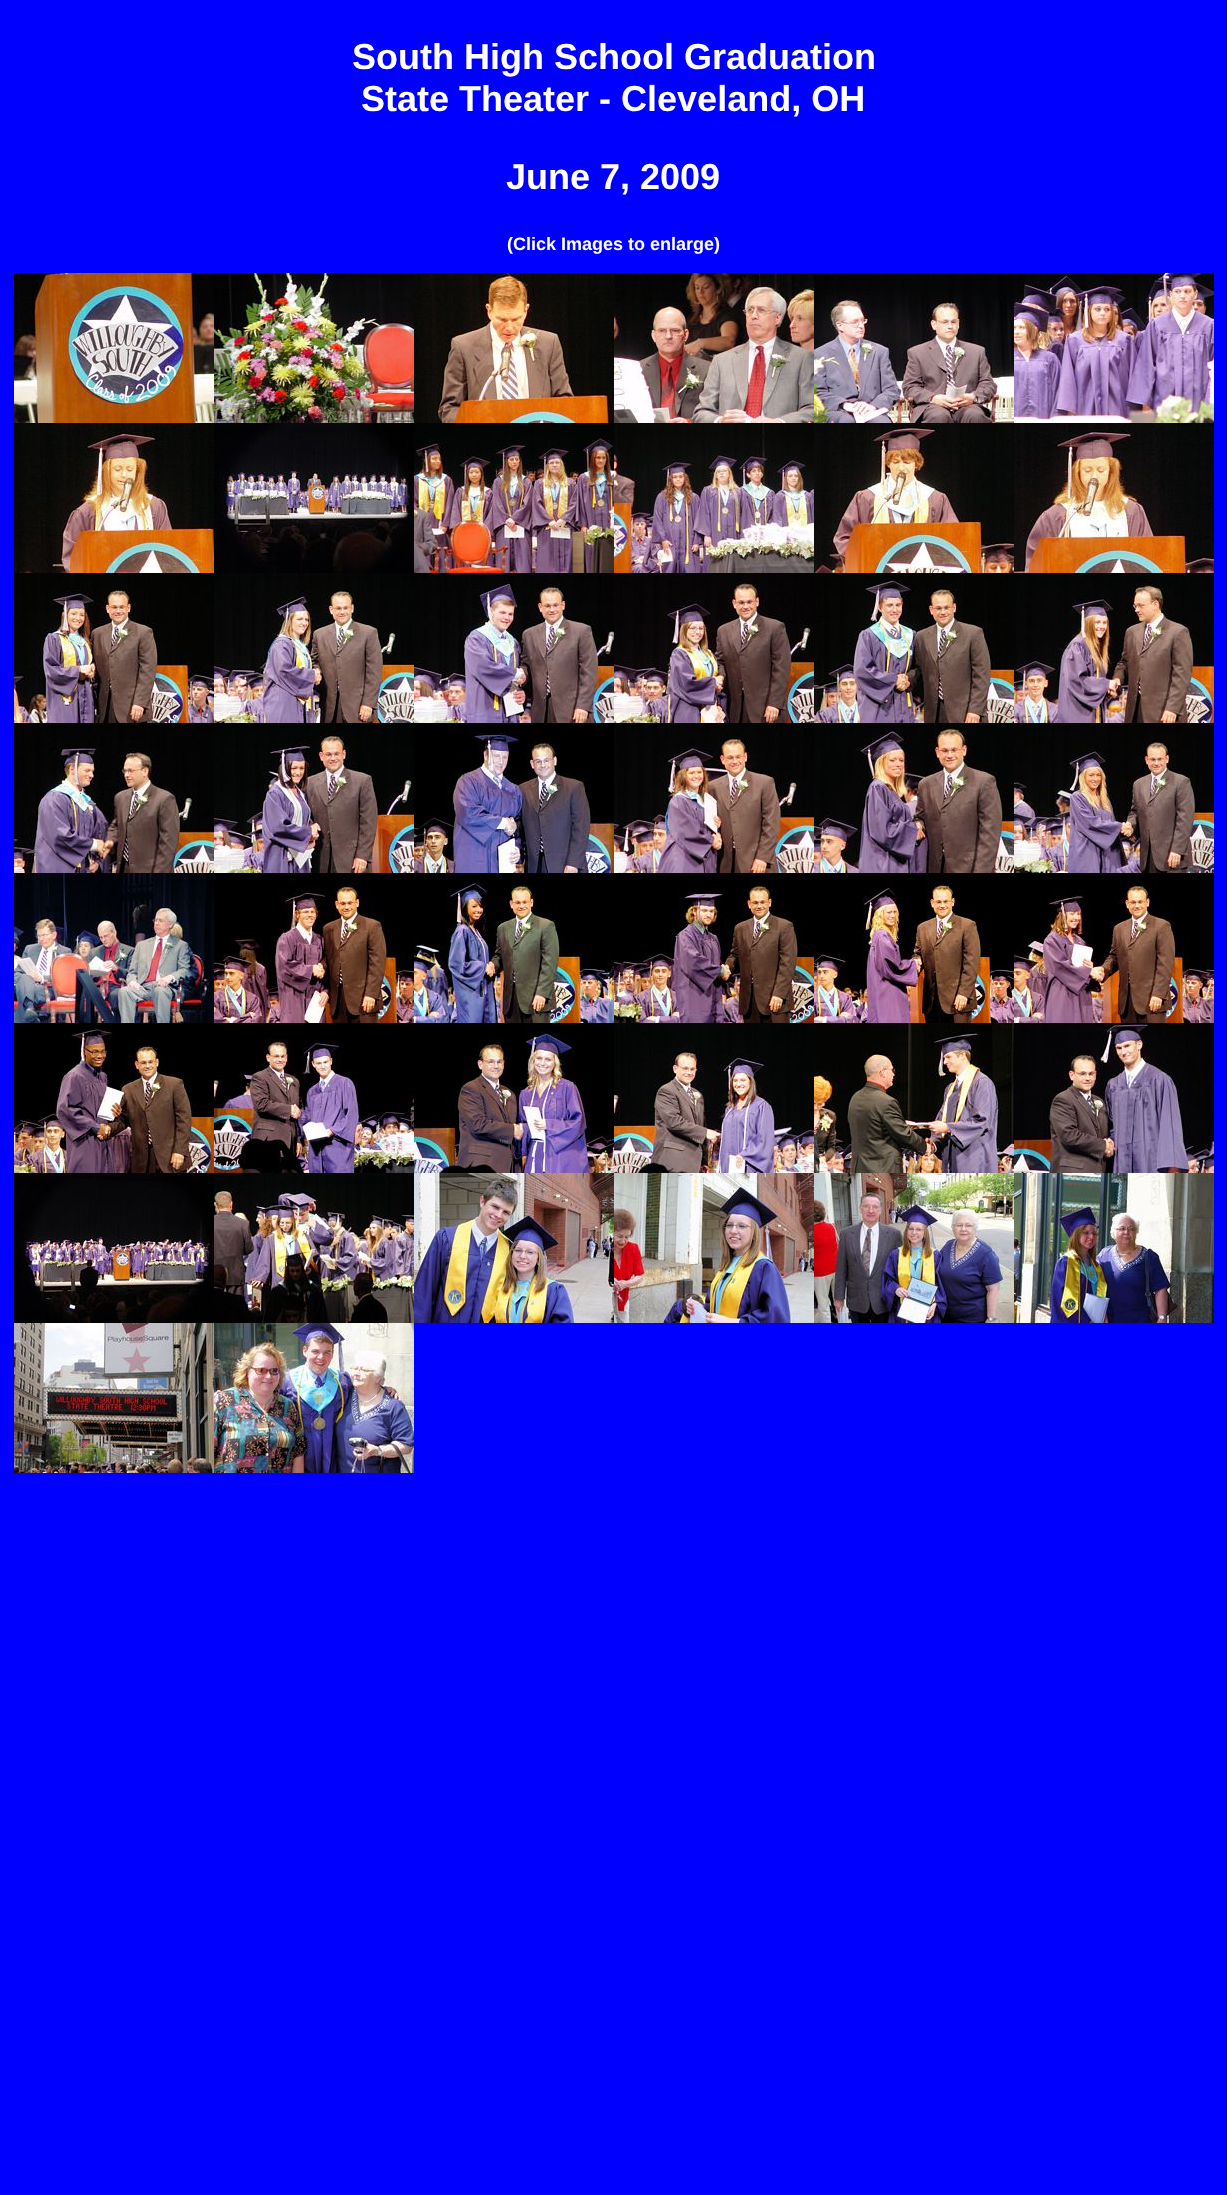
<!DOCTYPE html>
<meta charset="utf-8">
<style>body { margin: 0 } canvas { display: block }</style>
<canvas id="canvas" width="1227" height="2195"></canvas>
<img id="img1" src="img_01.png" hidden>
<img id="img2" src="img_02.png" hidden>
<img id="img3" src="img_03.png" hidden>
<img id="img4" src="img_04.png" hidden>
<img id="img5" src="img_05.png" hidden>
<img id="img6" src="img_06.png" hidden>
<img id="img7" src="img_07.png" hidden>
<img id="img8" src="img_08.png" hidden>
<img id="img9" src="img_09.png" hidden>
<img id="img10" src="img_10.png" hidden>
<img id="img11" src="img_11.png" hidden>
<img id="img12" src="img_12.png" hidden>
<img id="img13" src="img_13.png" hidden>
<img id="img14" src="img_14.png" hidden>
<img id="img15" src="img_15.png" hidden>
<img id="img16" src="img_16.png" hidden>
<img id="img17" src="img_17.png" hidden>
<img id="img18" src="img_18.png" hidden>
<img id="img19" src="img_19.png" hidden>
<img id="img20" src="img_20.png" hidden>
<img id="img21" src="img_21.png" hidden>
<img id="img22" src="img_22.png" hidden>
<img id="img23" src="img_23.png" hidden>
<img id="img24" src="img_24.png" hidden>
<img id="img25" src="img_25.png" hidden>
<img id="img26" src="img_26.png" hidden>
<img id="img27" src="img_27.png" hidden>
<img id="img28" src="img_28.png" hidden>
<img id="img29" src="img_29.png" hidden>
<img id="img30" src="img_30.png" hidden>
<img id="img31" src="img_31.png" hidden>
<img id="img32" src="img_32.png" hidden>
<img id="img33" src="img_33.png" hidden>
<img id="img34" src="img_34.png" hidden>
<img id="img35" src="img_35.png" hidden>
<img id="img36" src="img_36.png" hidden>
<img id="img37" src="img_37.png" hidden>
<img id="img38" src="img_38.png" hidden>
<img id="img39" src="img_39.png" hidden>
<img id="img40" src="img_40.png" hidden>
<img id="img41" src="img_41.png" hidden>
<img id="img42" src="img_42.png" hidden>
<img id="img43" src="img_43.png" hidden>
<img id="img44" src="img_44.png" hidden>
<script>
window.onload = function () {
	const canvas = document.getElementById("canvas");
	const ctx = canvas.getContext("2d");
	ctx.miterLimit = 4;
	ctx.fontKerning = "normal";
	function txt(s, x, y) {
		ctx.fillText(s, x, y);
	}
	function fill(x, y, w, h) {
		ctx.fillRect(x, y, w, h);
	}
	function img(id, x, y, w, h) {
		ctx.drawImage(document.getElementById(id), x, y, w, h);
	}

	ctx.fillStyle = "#0000FF";
	fill(0, 0, 1227, 2195);
	img("img1", 14, 273, 200, 150);
	img("img2", 214, 273, 200, 150);
	img("img3", 414, 273, 200, 150);
	img("img4", 614, 273, 200, 150);
	img("img5", 814, 273, 200, 150);
	img("img6", 1014, 273, 200, 150);
	img("img7", 14, 423, 200, 150);
	img("img8", 214, 423, 200, 150);
	img("img9", 414, 423, 200, 150);
	img("img10", 614, 423, 200, 150);
	img("img11", 814, 423, 200, 150);
	img("img12", 1014, 423, 200, 150);
	img("img13", 14, 573, 200, 150);
	img("img14", 214, 573, 200, 150);
	img("img15", 414, 573, 200, 150);
	img("img16", 614, 573, 200, 150);
	img("img17", 814, 573, 200, 150);
	img("img18", 1014, 573, 200, 150);
	img("img19", 14, 723, 200, 150);
	img("img20", 214, 723, 200, 150);
	img("img21", 414, 723, 200, 150);
	img("img22", 614, 723, 200, 150);
	img("img23", 814, 723, 200, 150);
	img("img24", 1014, 723, 200, 150);
	img("img25", 14, 873, 200, 150);
	img("img26", 214, 873, 200, 150);
	img("img27", 414, 873, 200, 150);
	img("img28", 614, 873, 200, 150);
	img("img29", 814, 873, 200, 150);
	img("img30", 1014, 873, 200, 150);
	img("img31", 14, 1023, 200, 150);
	img("img32", 214, 1023, 200, 150);
	img("img33", 414, 1023, 200, 150);
	img("img34", 614, 1023, 200, 150);
	img("img35", 814, 1023, 200, 150);
	img("img36", 1014, 1023, 200, 150);
	img("img37", 14, 1173, 200, 150);
	img("img38", 214, 1173, 200, 150);
	img("img39", 414, 1173, 200, 150);
	img("img40", 614, 1173, 200, 150);
	img("img41", 814, 1173, 200, 150);
	img("img42", 1014, 1173, 200, 150);
	img("img43", 14, 1323, 200, 150);
	img("img44", 214, 1323, 200, 150);
	ctx.font = "bold 36px Liberation Sans";
	ctx.fillStyle = "#FFFFFF";
	txt("South High School Graduation", 352, 69);
	txt("State Theater - Cleveland, OH", 361, 111);
	txt("June 7, 2009", 506, 189);
	ctx.font = "bold 18px Liberation Sans";
	txt("(Click Images to enlarge)", 507, 250);
};
</script>
